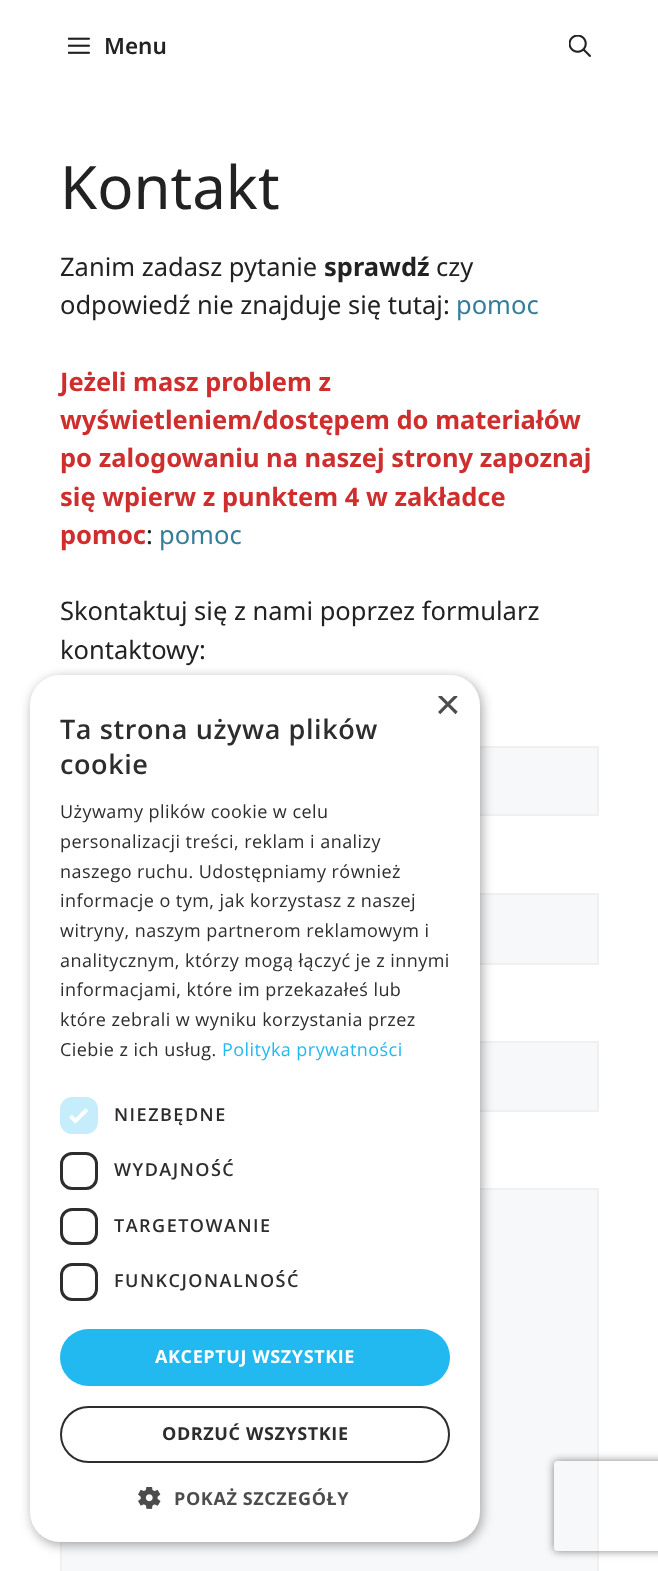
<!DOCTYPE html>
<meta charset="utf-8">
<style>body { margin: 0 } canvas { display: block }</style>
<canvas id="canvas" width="658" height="1571"></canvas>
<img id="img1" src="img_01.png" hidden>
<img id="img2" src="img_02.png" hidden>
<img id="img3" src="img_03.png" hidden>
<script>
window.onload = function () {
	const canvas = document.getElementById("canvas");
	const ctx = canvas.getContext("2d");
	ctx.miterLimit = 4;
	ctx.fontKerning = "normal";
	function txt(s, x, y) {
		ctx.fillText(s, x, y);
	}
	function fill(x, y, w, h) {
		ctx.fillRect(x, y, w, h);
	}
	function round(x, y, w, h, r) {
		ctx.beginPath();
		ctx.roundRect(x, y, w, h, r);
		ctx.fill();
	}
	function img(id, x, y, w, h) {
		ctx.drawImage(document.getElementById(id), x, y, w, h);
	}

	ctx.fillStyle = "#FFFFFF";
	fill(0, 0, 658, 1571);
	img("img1", 68, 37, 22, 17);
	img("img2", 569, 35, 22, 22);
	ctx.fillStyle = "#F7F8F9";
	fill(480, 748, 117, 66);
	ctx.strokeStyle = "#F0F0F0";
	ctx.lineWidth = 2;
	ctx.strokeRect(61, 747, 537, 68);
	fill(480, 895, 117, 68);
	ctx.strokeRect(61, 894, 537, 70);
	fill(480, 1043, 117, 67);
	ctx.strokeRect(61, 1042, 537, 69);
	ctx.beginPath();
	ctx.rect(61, 1189, 537, 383);
	ctx.fill();
	ctx.stroke();
	ctx.fillStyle = "rgba(0, 0, 0, 0.35)";
	ctx.filter = "blur(6px)";
	ctx.beginPath();
	ctx.roundRect(32, 678, 450, 867, 30);
	ctx.fill();
	ctx.filter = "none";
	ctx.fillStyle = "#FFFFFF";
	round(30, 675, 450, 867, 30);
	ctx.fillStyle = "#C6EDFB";
	round(60, 1097, 38, 37, 12);
	ctx.beginPath();
	ctx.moveTo(70.5, 1116);
	ctx.lineTo(75.5, 1121);
	ctx.lineTo(87, 1109.5);
	ctx.strokeStyle = "#FFFFFF";
	ctx.lineWidth = 3.9;
	ctx.stroke();
	ctx.beginPath();
	ctx.roundRect(61.5, 1153.5, 35, 35, 10.5);
	ctx.strokeStyle = "#2D2D2D";
	ctx.lineWidth = 3;
	ctx.stroke();
	ctx.beginPath();
	ctx.roundRect(61.5, 1209.5, 35, 34, 10.5);
	ctx.stroke();
	ctx.beginPath();
	ctx.roundRect(61.5, 1264.5, 35, 35, 10.5);
	ctx.stroke();
	ctx.fillStyle = "#22B8F0";
	round(60, 1329, 390, 57, 28.5);
	ctx.beginPath();
	ctx.roundRect(61, 1407, 388, 55, 27.5);
	ctx.lineWidth = 2;
	ctx.stroke();
	img("img3", 138, 1487, 23, 22);
	ctx.save();
	ctx.beginPath();
	ctx.moveTo(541, 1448);
	ctx.lineTo(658, 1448);
	ctx.lineTo(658, 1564);
	ctx.lineTo(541, 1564);
	ctx.closePath();
	ctx.moveTo(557, 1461);
	ctx.lineTo(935, 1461);
	ctx.bezierCurveTo(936.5, 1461, 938, 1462.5, 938, 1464);
	ctx.lineTo(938, 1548);
	ctx.bezierCurveTo(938, 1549.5, 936.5, 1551, 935, 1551);
	ctx.lineTo(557, 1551);
	ctx.bezierCurveTo(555.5, 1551, 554, 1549.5, 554, 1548);
	ctx.lineTo(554, 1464);
	ctx.bezierCurveTo(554, 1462.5, 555.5, 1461, 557, 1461);
	ctx.closePath();
	ctx.clip("evenodd");
	ctx.fillStyle = "#808080";
	ctx.filter = "blur(4px)";
	ctx.beginPath();
	ctx.roundRect(554, 1461, 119, 90, 3);
	ctx.fill();
	ctx.filter = "none";
	ctx.restore();
	ctx.font = "600 22.5px Noto Sans";
	ctx.fillStyle = "#222222";
	txt("Menu", 104, 54);
	ctx.font = "60px Noto Sans";
	txt("Kontakt", 60, 209);
	ctx.font = "25.5px Noto Sans";
	txt("Zanim zadasz pytanie", 60, 276);
	ctx.font = "bold 25.5px Noto Sans";
	txt("sprawdź", 324, 276);
	ctx.font = "25.5px Noto Sans";
	txt("czy", 436, 276);
	txt("odpowiedź nie znajduje się tutaj:", 60, 314);
	ctx.fillStyle = "#367D99";
	txt("pomoc", 456, 314);
	ctx.font = "bold 25.5px Noto Sans";
	ctx.fillStyle = "#CF2E2E";
	txt("Jeżeli masz problem z", 60, 391);
	txt("wyświetleniem/dostępem do materiałów", 60, 429);
	txt("po zalogowaniu na naszej strony zapoznaj", 60, 467);
	txt("się wpierw z punktem 4 w zakładce", 60, 506);
	txt("pomoc", 60, 544);
	ctx.font = "25.5px Noto Sans";
	ctx.fillStyle = "#222222";
	txt(":", 146, 544);
	ctx.fillStyle = "#367D99";
	txt("pomoc", 159, 544);
	ctx.fillStyle = "#222222";
	txt("Skontaktuj się z nami poprzez formularz", 60, 620);
	txt("kontaktowy:", 60, 659);
	ctx.save();
	ctx.beginPath();
	ctx.rect(435, 696, 23, 23);
	ctx.clip();
	ctx.font = "44px Liberation Sans";
	ctx.fillStyle = "#4D4D4D";
	txt("×", 435, 719);
	ctx.restore();
	ctx.letterSpacing = "0.6px";
	ctx.font = "600 27px Open Sans";
	ctx.fillStyle = "#2D2D2D";
	txt("Ta strona używa plików", 60, 739);
	txt("cookie", 60, 774);
	ctx.letterSpacing = "0.45px";
	ctx.font = "18px Open Sans";
	txt("Używamy plików cookie w celu", 60, 818);
	txt("personalizacji treści, reklam i analizy", 60, 848);
	txt("naszego ruchu. Udostępniamy również", 60, 878);
	txt("informacje o tym, jak korzystasz z naszej", 60, 907);
	txt("witryny, naszym partnerom reklamowym i", 60, 937);
	txt("analitycznym, którzy mogą łączyć je z innymi", 60, 967);
	txt("informacjami, które im przekazałeś lub", 60, 996);
	txt("które zebrali w wyniku korzystania przez", 60, 1026);
	txt("Ciebie z ich usług.", 60, 1056);
	ctx.fillStyle = "#22B8F0";
	txt("Polityka prywatności", 222, 1056);
	ctx.letterSpacing = "1.5px";
	ctx.font = "600 18px Open Sans";
	ctx.fillStyle = "#2D2D2D";
	txt("NIEZBĘDNE", 114, 1121);
	txt("WYDAJNOŚĆ", 114, 1176);
	txt("TARGETOWANIE", 114, 1232);
	txt("FUNKCJONALNOŚĆ", 114, 1287);
	ctx.letterSpacing = "0.6px";
	ctx.font = "bold 18px Open Sans";
	ctx.fillStyle = "#FFFFFF";
	txt("AKCEPTUJ WSZYSTKIE", 155, 1363);
	ctx.fillStyle = "#2D2D2D";
	txt("ODRZUĆ WSZYSTKIE", 162, 1440);
	ctx.fillStyle = "#4D4D4D";
	txt("POKAŻ SZCZEGÓŁY", 174, 1505);
};
</script>
